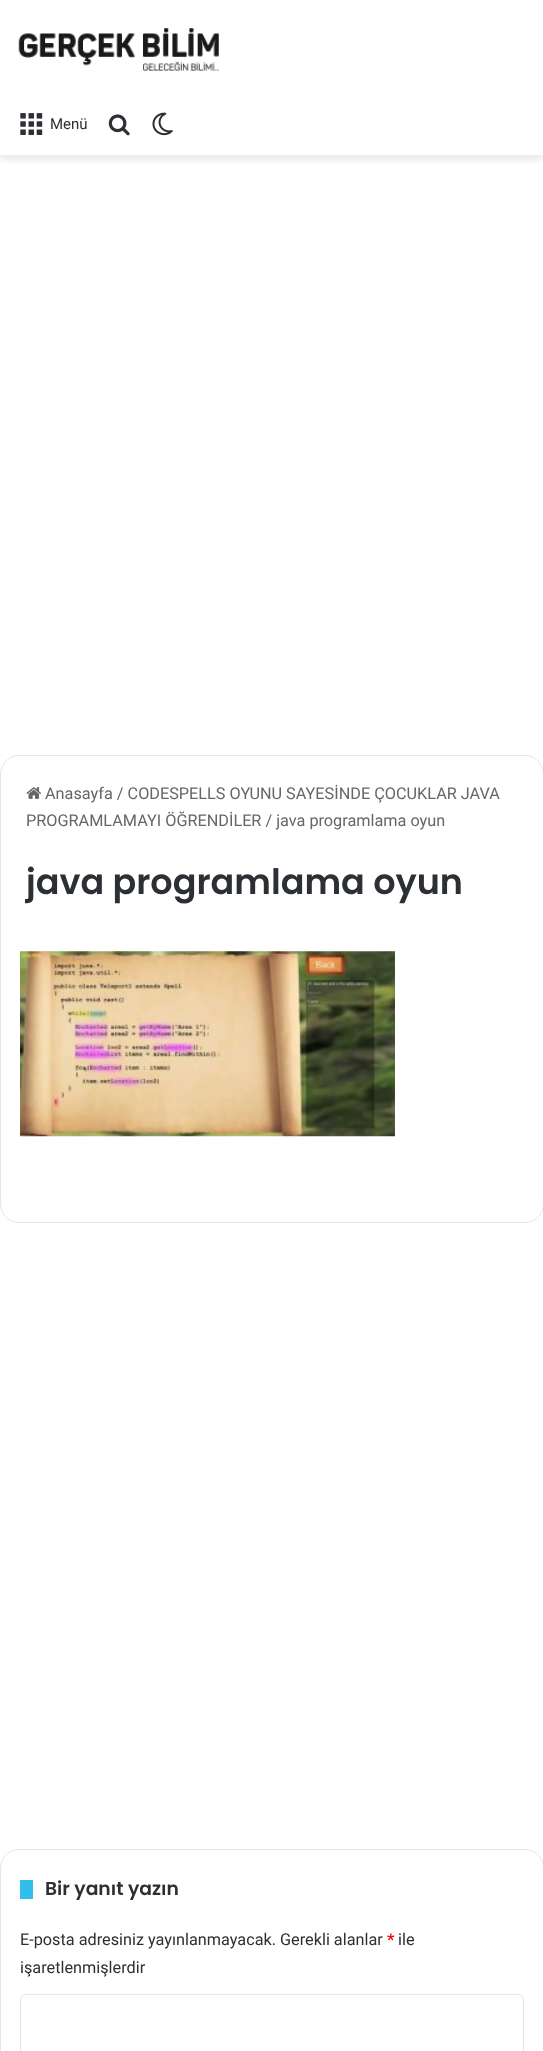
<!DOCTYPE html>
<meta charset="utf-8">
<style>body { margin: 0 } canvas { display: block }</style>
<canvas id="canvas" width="543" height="2051"></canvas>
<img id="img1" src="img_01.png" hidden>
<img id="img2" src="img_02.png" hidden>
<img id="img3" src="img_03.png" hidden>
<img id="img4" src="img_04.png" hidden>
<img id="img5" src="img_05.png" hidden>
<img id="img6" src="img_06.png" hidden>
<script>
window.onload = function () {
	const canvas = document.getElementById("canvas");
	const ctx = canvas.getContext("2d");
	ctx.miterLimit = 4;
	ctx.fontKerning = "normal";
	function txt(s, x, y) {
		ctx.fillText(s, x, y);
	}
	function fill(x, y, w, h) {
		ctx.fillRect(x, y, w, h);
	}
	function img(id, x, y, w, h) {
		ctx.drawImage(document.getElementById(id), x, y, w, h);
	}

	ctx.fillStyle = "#FFFFFF";
	fill(0, 0, 543, 2051);
	ctx.save();
	ctx.beginPath();
	ctx.rect(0, 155, 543, 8);
	ctx.clip();
	ctx.fillStyle = "rgba(0, 0, 0, 0.1)";
	ctx.filter = "blur(4.5px)";
	ctx.beginPath();
	ctx.rect(0, 4, 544, 155);
	ctx.fill();
	ctx.filter = "none";
	ctx.restore();
	img("img1", 18, 28, 201, 43);
	img("img2", 20, 113, 23, 22);
	img("img3", 108, 114, 22, 22);
	img("img4", 152, 112, 21, 24);
	ctx.beginPath();
	ctx.roundRect(0.5, 755.5, 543, 467, 18.5);
	ctx.strokeStyle = "#E6E6E6";
	ctx.stroke();
	img("img5", 26, 787, 15, 12);
	img("img6", 20, 951, 375, 186);
	ctx.beginPath();
	ctx.roundRect(0.5, 1849.5, 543, 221, 18.5);
	ctx.stroke();
	ctx.fillStyle = "#32BEEB";
	fill(20, 1880, 13, 19);
	ctx.beginPath();
	ctx.roundRect(20.5, 1994.5, 503, 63, 5.5);
	ctx.stroke();
	ctx.font = "15px Roboto";
	ctx.fillStyle = "#2C2F34";
	txt("Menü", 50, 129);
	ctx.font = "16.25px Roboto";
	ctx.fillStyle = "#666666";
	txt("Anasayfa / CODESPELLS OYUNU SAYESİNDE ÇOCUKLAR JAVA", 45, 799);
	txt("PROGRAMLAMAYI ÖĞRENDİLER / java programlama oyun", 26, 826);
	ctx.font = "600 35px Poppins";
	ctx.fillStyle = "#2C2F34";
	txt("java programlama oyun", 26, 894);
	ctx.font = "600 18.75px Poppins";
	txt("Bir yanıt yazın", 45, 1895);
	ctx.font = "16.25px Roboto";
	txt("E-posta adresiniz yayınlanmayacak. Gerekli alanlar", 20, 1945);
	ctx.font = "bold 16.25px Roboto";
	ctx.fillStyle = "#FF0000";
	txt("*", 387, 1945);
	ctx.font = "16.25px Roboto";
	ctx.fillStyle = "#2C2F34";
	txt("ile", 398, 1945);
	txt("işaretlenmişlerdir", 20, 1973);
};
</script>
